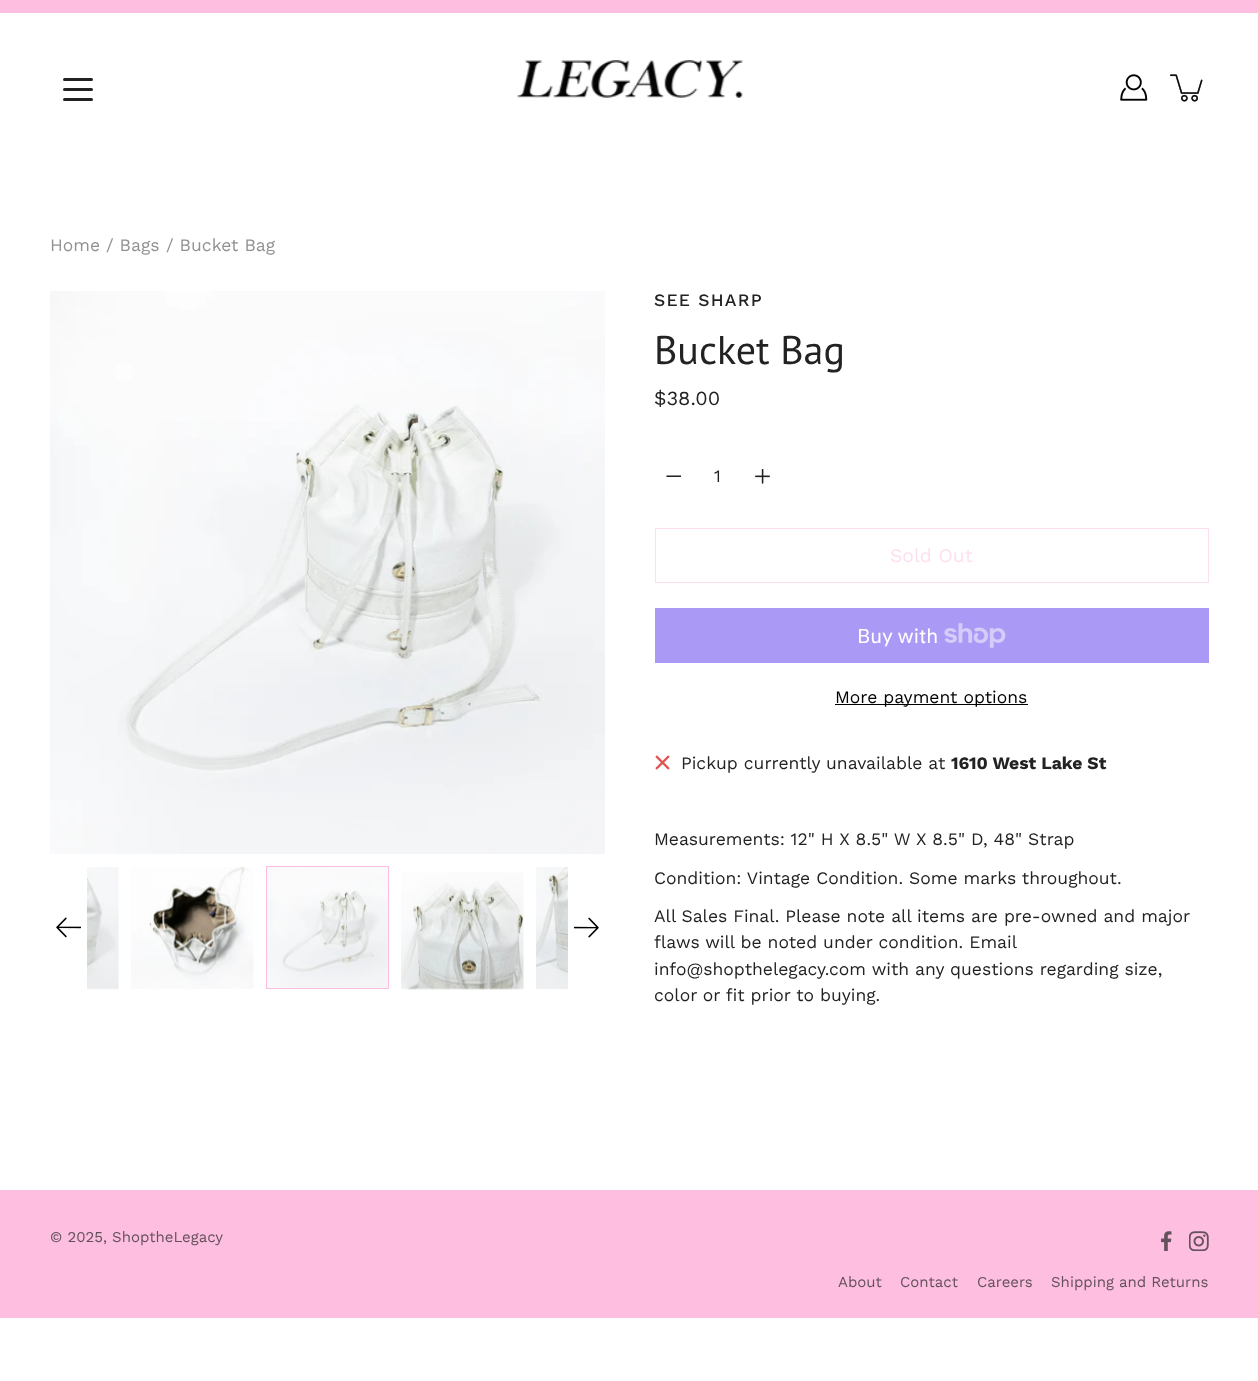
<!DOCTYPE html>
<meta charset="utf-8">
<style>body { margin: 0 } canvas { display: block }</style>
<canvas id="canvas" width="1258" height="1381"></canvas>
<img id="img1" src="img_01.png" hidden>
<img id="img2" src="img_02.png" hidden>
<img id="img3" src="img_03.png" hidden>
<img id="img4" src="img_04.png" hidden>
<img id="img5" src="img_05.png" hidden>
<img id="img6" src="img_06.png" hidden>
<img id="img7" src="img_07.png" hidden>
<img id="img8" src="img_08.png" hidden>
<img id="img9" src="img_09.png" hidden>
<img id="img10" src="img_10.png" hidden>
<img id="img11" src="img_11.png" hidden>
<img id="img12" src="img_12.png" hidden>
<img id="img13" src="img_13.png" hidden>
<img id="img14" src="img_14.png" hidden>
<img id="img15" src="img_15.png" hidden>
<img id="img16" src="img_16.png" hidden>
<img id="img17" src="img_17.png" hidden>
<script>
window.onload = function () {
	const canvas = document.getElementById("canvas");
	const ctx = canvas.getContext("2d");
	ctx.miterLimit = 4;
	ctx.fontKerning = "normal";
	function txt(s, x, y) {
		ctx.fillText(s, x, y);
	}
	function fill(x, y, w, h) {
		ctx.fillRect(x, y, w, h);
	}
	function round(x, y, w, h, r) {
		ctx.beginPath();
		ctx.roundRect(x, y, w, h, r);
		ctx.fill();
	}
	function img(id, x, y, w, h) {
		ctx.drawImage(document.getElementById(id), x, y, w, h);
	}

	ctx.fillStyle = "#FFFFFF";
	fill(0, 0, 1258, 1381);
	ctx.fillStyle = "#FDBEE0";
	fill(0, 0, 1258, 13);
	img("img1", 517, 60, 226, 38);
	ctx.fillStyle = "#222222";
	round(63, 88, 30, 3, 1.5);
	round(63, 78, 30, 3, 1.5);
	round(63, 98, 30, 3, 1.5);
	img("img2", 1120, 74, 28, 27);
	img("img3", 1170, 74, 33, 28);
	img("img4", 50, 291, 555, 563);
	img("img5", 56, 917, 25, 21);
	img("img6", 87, 867, 32, 123);
	img("img7", 131, 867, 123, 122);
	img("img8", 267, 867, 121, 121);
	ctx.strokeStyle = "#FDBEE0";
	ctx.strokeRect(266.5, 866.5, 122, 122);
	img("img9", 401, 872, 123, 118);
	img("img10", 536, 867, 32, 122);
	img("img11", 574, 917, 25, 21);
	img("img12", 666, 475, 15, 2);
	img("img13", 755, 469, 15, 15);
	ctx.strokeStyle = "#FEDFF0";
	ctx.strokeRect(655.5, 528.5, 553, 54);
	ctx.fillStyle = "#AA99F5";
	fill(655, 608, 554, 55);
	img("img14", 944, 623, 62, 25);
	ctx.fillStyle = "#000000";
	fill(835, 704, 193, 1);
	img("img15", 655, 755, 15, 15);
	ctx.fillStyle = "#FDBEE0";
	fill(0, 1190, 1258, 128);
	img("img16", 1161, 1231, 11, 20);
	img("img17", 1189, 1231, 20, 20);
	ctx.font = "17.5px Work Sans";
	ctx.fillStyle = "#919191";
	txt("Home / Bags", 50, 251);
	txt("/ Bucket Bag", 166, 251);
	ctx.letterSpacing = "1.25px";
	ctx.font = "500 17.5px Work Sans";
	ctx.fillStyle = "#222222";
	txt("SEE SHARP", 654, 306);
	ctx.letterSpacing = "0px";
	ctx.font = "40px PT Sans";
	txt("Bucket Bag", 654, 364);
	ctx.font = "20px Work Sans";
	txt("$38.00", 654, 405);
	ctx.font = "17.5px Work Sans";
	txt("1", 714, 482);
	ctx.font = "19.25px Work Sans";
	ctx.fillStyle = "#FEDFF0";
	txt("Sold Out", 890, 562);
	ctx.font = "20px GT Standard";
	ctx.fillStyle = "#FFFFFF";
	txt("Buy with", 857, 643);
	ctx.font = "17.5px Work Sans";
	ctx.fillStyle = "#000000";
	txt("More payment options", 835, 703);
	ctx.fillStyle = "#222222";
	txt("Pickup currently unavailable at", 681, 769);
	ctx.font = "bold 17.5px Work Sans";
	txt("1610 West Lake St", 951, 769);
	ctx.font = "17.5px Work Sans";
	txt("Measurements: 12\" H X 8.5\" W X 8.5\" D, 48\" Strap", 654, 845);
	txt("Condition: Vintage Condition. Some marks throughout.", 654, 884);
	txt("All Sales Final. Please note all items are pre-owned and major", 654, 922);
	txt("flaws will be noted under condition. Email", 654, 948);
	txt("info@shopthelegacy.com with any questions regarding size,", 654, 975);
	txt("color or fit prior to buying.", 654, 1001);
	ctx.font = "15px Work Sans";
	ctx.fillStyle = "#64515B";
	txt("© 2025, ShoptheLegacy", 50, 1242);
	txt("About", 838, 1287);
	txt("Contact", 900, 1287);
	txt("Careers", 977, 1287);
	txt("Shipping and Returns", 1051, 1287);
};
</script>
